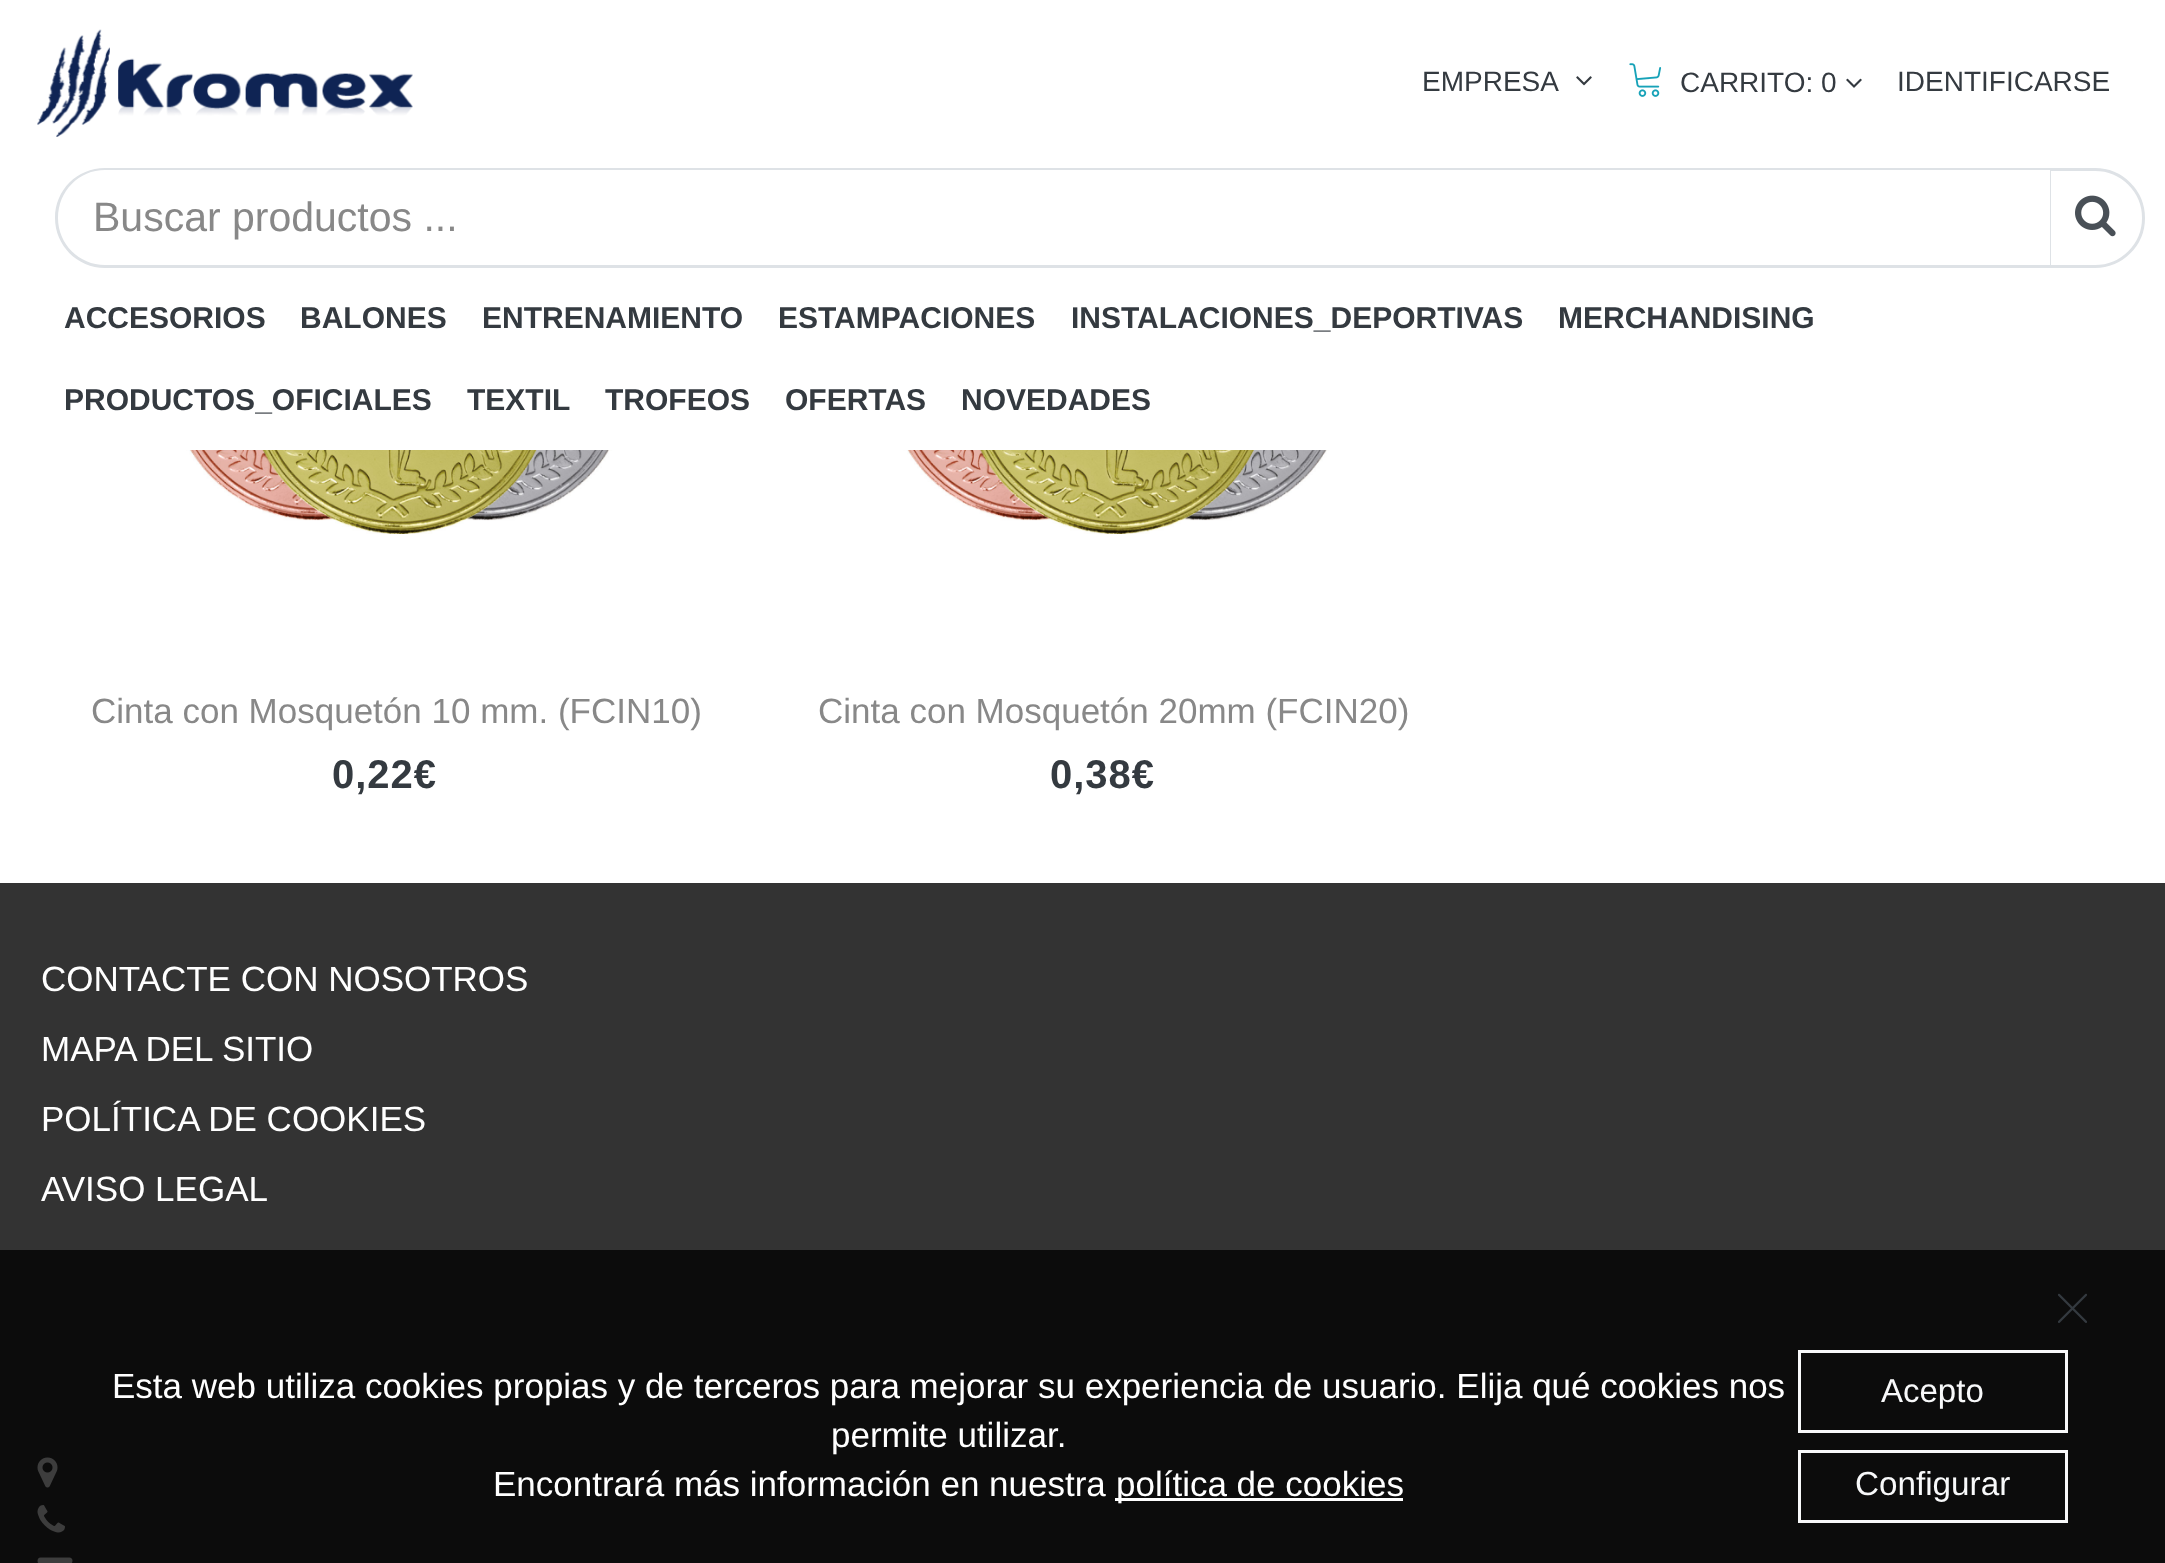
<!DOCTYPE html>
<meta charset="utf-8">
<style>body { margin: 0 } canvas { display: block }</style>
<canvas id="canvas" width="2165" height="1563"></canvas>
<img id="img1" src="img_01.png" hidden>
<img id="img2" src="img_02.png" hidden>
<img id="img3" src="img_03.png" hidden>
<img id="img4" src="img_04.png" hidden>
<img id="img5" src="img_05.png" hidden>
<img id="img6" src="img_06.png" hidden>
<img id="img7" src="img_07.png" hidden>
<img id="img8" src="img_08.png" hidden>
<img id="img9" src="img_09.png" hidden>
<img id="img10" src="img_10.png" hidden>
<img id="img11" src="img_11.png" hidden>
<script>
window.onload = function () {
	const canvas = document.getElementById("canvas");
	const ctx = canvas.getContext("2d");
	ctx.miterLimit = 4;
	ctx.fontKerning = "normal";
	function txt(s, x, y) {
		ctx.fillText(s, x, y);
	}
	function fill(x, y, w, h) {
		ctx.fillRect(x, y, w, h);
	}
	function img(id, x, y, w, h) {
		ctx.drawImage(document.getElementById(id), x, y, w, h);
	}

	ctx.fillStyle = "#FFFFFF";
	fill(0, 0, 2165, 1563);
	img("img1", 37, 29, 376, 108);
	img("img2", 1576, 76, 16, 10);
	img("img3", 1629, 63, 33, 34);
	img("img4", 1846, 78, 16, 10);
	ctx.beginPath();
	ctx.roundRect(2049.5, 169.5, 94, 97, [0, 48.5, 48.5, 0]);
	ctx.strokeStyle = "#DEE2E6";
	ctx.lineWidth = 3;
	ctx.stroke();
	ctx.beginPath();
	ctx.roundRect(58, 170, 1992, 95, [47.5, 0, 0, 47.5]);
	ctx.fill();
	ctx.fillStyle = "#DEE2E6";
	ctx.beginPath();
	ctx.moveTo(105, 168);
	ctx.lineTo(2050, 168);
	ctx.lineTo(2050, 268);
	ctx.lineTo(105, 268);
	ctx.bezierCurveTo(77, 268, 55, 245, 55, 218);
	ctx.bezierCurveTo(55, 190, 77, 168, 105, 168);
	ctx.closePath();
	ctx.moveTo(105, 170);
	ctx.lineTo(2050, 170);
	ctx.lineTo(2050, 265);
	ctx.lineTo(105, 265);
	ctx.bezierCurveTo(79, 265, 58, 244, 58, 218);
	ctx.bezierCurveTo(58, 191, 79, 170, 105, 170);
	ctx.closePath();
	ctx.fill("evenodd");
	img("img5", 2075, 195, 41, 42);
	img("img6", 169, 450, 460, 84);
	img("img7", 886, 450, 460, 84);
	ctx.fillStyle = "#333333";
	fill(0, 883, 2165, 680);
	img("img8", 37, 1457, 21, 31);
	img("img9", 37, 1505, 28, 28);
	img("img10", 37, 1557, 36, 6);
	ctx.fillStyle = "rgba(0, 0, 0, 0.76)";
	fill(0, 1250, 2165, 313);
	img("img11", 2058, 1293, 29, 30);
	ctx.fillStyle = "#FFFFFF";
	fill(1115, 1498, 288, 3);
	ctx.strokeStyle = "#F8F9FA";
	ctx.strokeRect(1799.5, 1351.5, 267, 80);
	ctx.strokeRect(1799.5, 1451.5, 267, 70);
	ctx.font = "28px Liberation Sans";
	ctx.fillStyle = "#343A40";
	txt("EMPRESA", 1422, 91);
	txt("CARRITO: 0", 1680, 92);
	txt("IDENTIFICARSE", 1897, 91);
	ctx.font = "41px Liberation Sans";
	ctx.fillStyle = "#888888";
	txt("Buscar productos ...", 93, 231);
	ctx.font = "bold 30px Liberation Sans";
	ctx.fillStyle = "#343A40";
	txt("ACCESORIOS", 64, 328);
	txt("BALONES", 300, 328);
	txt("ENTRENAMIENTO", 482, 328);
	txt("ESTAMPACIONES", 778, 328);
	txt("INSTALACIONES_DEPORTIVAS", 1071, 328);
	txt("MERCHANDISING", 1558, 328);
	txt("PRODUCTOS_OFICIALES", 64, 410);
	txt("TEXTIL", 467, 410);
	txt("TROFEOS", 605, 410);
	txt("OFERTAS", 785, 410);
	txt("NOVEDADES", 961, 410);
	ctx.font = "35px Liberation Sans";
	ctx.fillStyle = "#888888";
	txt("Cinta con Mosquetón 10 mm. (FCIN10)", 91, 723);
	ctx.letterSpacing = "1px";
	ctx.font = "bold 40px Liberation Sans";
	ctx.fillStyle = "#343A40";
	txt("0,22€", 332, 788);
	ctx.letterSpacing = "0px";
	ctx.font = "35px Liberation Sans";
	ctx.fillStyle = "#888888";
	txt("Cinta con Mosquetón 20mm (FCIN20)", 818, 723);
	ctx.letterSpacing = "1px";
	ctx.font = "bold 40px Liberation Sans";
	ctx.fillStyle = "#343A40";
	txt("0,38€", 1050, 788);
	ctx.letterSpacing = "0px";
	ctx.font = "35px Liberation Sans";
	ctx.fillStyle = "#FFFFFF";
	txt("CONTACTE CON NOSOTROS", 41, 991);
	txt("MAPA DEL SITIO", 41, 1061);
	txt("POLÍTICA DE COOKIES", 41, 1131);
	txt("AVISO LEGAL", 41, 1201);
	txt("Esta web utiliza cookies propias y de terceros para mejorar su experiencia de usuario. Elija qué cookies nos", 112, 1398);
	txt("permite utilizar.", 831, 1447);
	txt("Encontrará más información en nuestra", 493, 1496);
	txt("política de cookies", 1116, 1496);
	ctx.font = "33px Liberation Sans";
	ctx.fillStyle = "#F8F9FA";
	txt("Acepto", 1881, 1402);
	ctx.font = "33.25px Liberation Sans";
	txt("Configurar", 1855, 1495);
};
</script>
